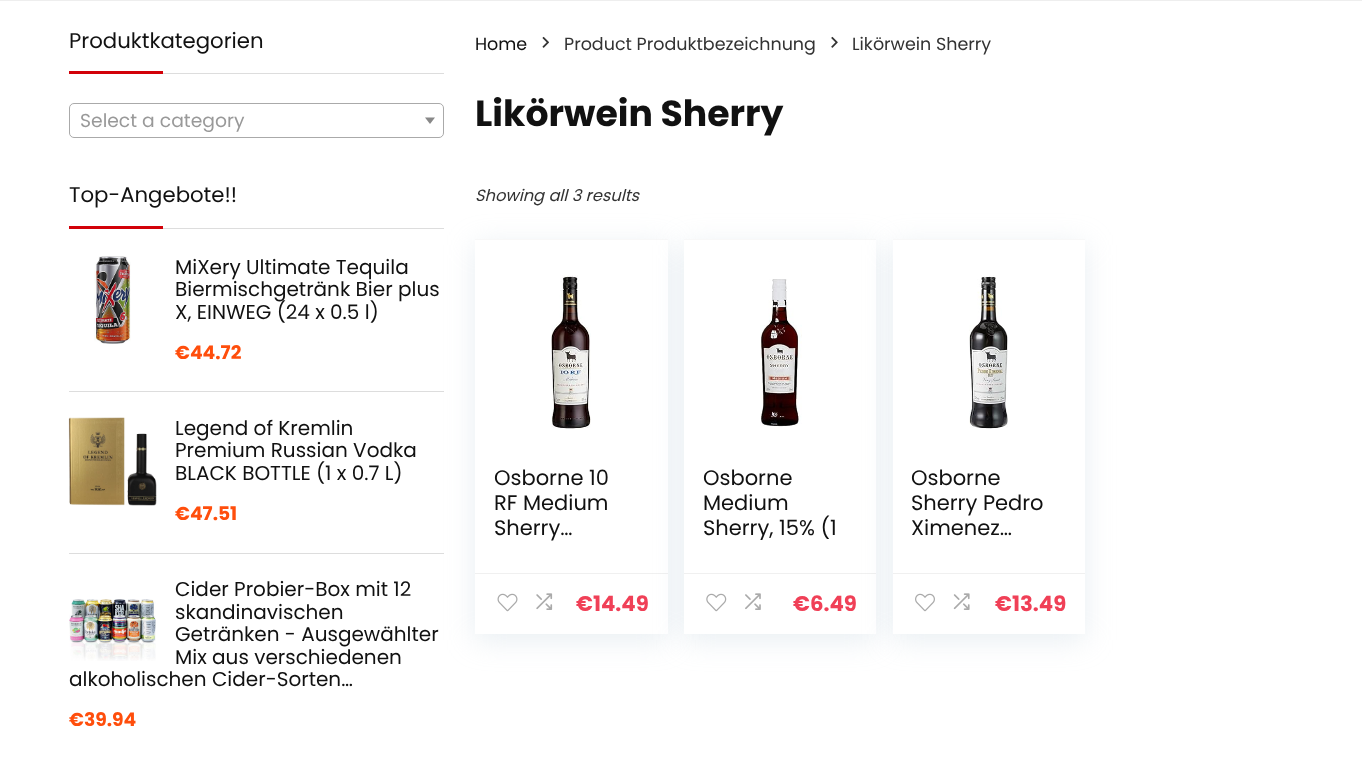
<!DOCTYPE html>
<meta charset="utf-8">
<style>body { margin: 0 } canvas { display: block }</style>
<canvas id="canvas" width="1362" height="764"></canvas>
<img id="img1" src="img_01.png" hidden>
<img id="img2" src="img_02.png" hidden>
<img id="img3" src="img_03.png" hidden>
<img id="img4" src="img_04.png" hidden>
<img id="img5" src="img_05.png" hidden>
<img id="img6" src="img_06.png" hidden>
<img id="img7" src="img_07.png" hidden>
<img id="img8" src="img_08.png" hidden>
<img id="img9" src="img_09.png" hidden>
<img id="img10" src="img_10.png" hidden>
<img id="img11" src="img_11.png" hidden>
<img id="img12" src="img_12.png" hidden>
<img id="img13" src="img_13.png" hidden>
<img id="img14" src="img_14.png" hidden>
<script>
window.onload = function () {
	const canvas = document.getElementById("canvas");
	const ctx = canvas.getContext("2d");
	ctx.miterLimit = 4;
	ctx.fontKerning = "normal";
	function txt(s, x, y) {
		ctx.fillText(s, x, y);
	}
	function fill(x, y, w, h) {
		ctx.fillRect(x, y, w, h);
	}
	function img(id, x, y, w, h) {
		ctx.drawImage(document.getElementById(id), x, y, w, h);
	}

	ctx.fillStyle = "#FFFFFF";
	fill(0, 0, 1362, 764);
	ctx.fillStyle = "#EEEEEE";
	fill(0, 0, 1362, 1);
	ctx.fillStyle = "#DDDDDD";
	fill(163, 73, 281, 1);
	ctx.fillStyle = "#D20109";
	fill(69, 71, 94, 3);
	ctx.beginPath();
	ctx.roundRect(69.5, 103.5, 374, 34, 4.5);
	ctx.strokeStyle = "#AAAAAA";
	ctx.stroke();
	ctx.fillStyle = "#888888";
	ctx.beginPath();
	ctx.moveTo(425, 117.5);
	ctx.lineTo(435, 117.5);
	ctx.lineTo(430, 124);
	ctx.closePath();
	ctx.fill();
	ctx.fillStyle = "#DDDDDD";
	fill(163, 228, 281, 1);
	ctx.fillStyle = "#D20109";
	fill(69, 226, 94, 3);
	ctx.fillStyle = "#DDDDDD";
	fill(69, 391, 375, 1);
	img("img1", 94, 256, 37, 88);
	fill(69, 553, 375, 1);
	img("img2", 68, 417, 89, 89);
	img("img3", 69, 599, 87, 62);
	img("img4", 542, 36, 7, 12);
	img("img5", 831, 36, 7, 12);
	ctx.fillStyle = "rgba(188, 207, 219, 0.35)";
	ctx.filter = "blur(14.5px)";
	ctx.beginPath();
	ctx.rect(475, 245, 193, 395);
	ctx.fill();
	ctx.filter = "none";
	ctx.fillStyle = "#FFFFFF";
	fill(475, 240, 193, 394);
	ctx.fillStyle = "#F8F8F8";
	fill(475, 239, 193, 1);
	img("img6", 551, 275, 40, 154);
	ctx.fillStyle = "#F0F0F0";
	fill(475, 573, 193, 1);
	img("img7", 497, 593, 21, 19);
	img("img8", 536, 593, 17, 17);
	ctx.fillStyle = "rgba(188, 207, 219, 0.35)";
	ctx.filter = "blur(14.5px)";
	ctx.beginPath();
	ctx.rect(684, 245, 192, 395);
	ctx.fill();
	ctx.filter = "none";
	ctx.fillStyle = "#FFFFFF";
	fill(684, 240, 192, 394);
	ctx.fillStyle = "#F8F8F8";
	fill(684, 239, 192, 1);
	img("img9", 760, 279, 42, 148);
	ctx.fillStyle = "#F0F0F0";
	fill(684, 573, 192, 1);
	img("img10", 706, 593, 21, 19);
	img("img11", 745, 593, 16, 17);
	ctx.fillStyle = "rgba(188, 207, 219, 0.35)";
	ctx.filter = "blur(14.5px)";
	ctx.beginPath();
	ctx.rect(893, 245, 192, 395);
	ctx.fill();
	ctx.filter = "none";
	ctx.fillStyle = "#FFFFFF";
	fill(893, 240, 192, 394);
	ctx.fillStyle = "#F8F8F8";
	fill(893, 239, 192, 1);
	img("img12", 969, 275, 39, 154);
	ctx.fillStyle = "#F0F0F0";
	fill(893, 573, 192, 1);
	img("img13", 915, 593, 20, 19);
	img("img14", 953, 593, 17, 17);
	ctx.font = "21.25px Poppins";
	ctx.fillStyle = "#111111";
	txt("Produktkategorien", 69, 48);
	ctx.font = "18.75px Poppins";
	ctx.fillStyle = "#999999";
	txt("Select a category", 80, 127);
	ctx.font = "21.25px Poppins";
	ctx.fillStyle = "#111111";
	txt("Top-Angebote!!", 69, 202);
	ctx.font = "20px Poppins";
	txt("MiXery Ultimate Tequila", 175, 274);
	txt("Biermischgetränk Bier plus", 175, 296);
	txt("X, EINWEG (24 x 0.5 l)", 175, 319);
	ctx.font = "bold 18.75px Poppins";
	ctx.fillStyle = "#FF4E0C";
	txt("€44.72", 175, 359);
	ctx.font = "20px Poppins";
	ctx.fillStyle = "#111111";
	txt("Legend of Kremlin", 175, 435);
	txt("Premium Russian Vodka", 175, 457);
	txt("BLACK BOTTLE (1 x 0.7 L)", 175, 480);
	ctx.font = "bold 18.75px Poppins";
	ctx.fillStyle = "#FF4E0C";
	txt("€47.51", 175, 520);
	ctx.font = "20px Poppins";
	ctx.fillStyle = "#111111";
	txt("Cider Probier-Box mit 12", 175, 596);
	txt("skandinavischen", 175, 619);
	txt("Getränken - Ausgewählter", 175, 641);
	txt("Mix aus verschiedenen", 175, 664);
	txt("alkoholischen Cider-Sorten…", 69, 686);
	ctx.font = "bold 18.75px Poppins";
	ctx.fillStyle = "#FF4E0C";
	txt("€39.94", 69, 726);
	ctx.font = "17.5px Poppins";
	ctx.fillStyle = "#111111";
	txt("Home", 475, 50);
	ctx.fillStyle = "#333333";
	txt("Product Produktbezeichnung", 564, 50);
	txt("Likörwein Sherry", 852, 50);
	ctx.font = "bold 36.25px Poppins";
	ctx.fillStyle = "#111111";
	txt("Likörwein Sherry", 475, 126);
	ctx.font = "italic 16.25px Poppins";
	ctx.fillStyle = "#333333";
	txt("Showing all 3 results", 475, 201);
	ctx.font = "21px Poppins";
	ctx.fillStyle = "#111111";
	txt("Osborne 10", 494, 485);
	txt("RF Medium", 494, 510);
	txt("Sherry…", 494, 535);
	ctx.font = "bold 21.25px Poppins";
	ctx.fillStyle = "#F04057";
	txt("€14.49", 576, 611);
	ctx.font = "21px Poppins";
	ctx.fillStyle = "#111111";
	txt("Osborne", 703, 485);
	txt("Medium", 703, 510);
	ctx.save();
	ctx.beginPath();
	ctx.rect(703, 465, 136, 75);
	ctx.clip();
	txt("Sherry, 15% (1", 703, 535);
	ctx.restore();
	ctx.font = "bold 21.25px Poppins";
	ctx.fillStyle = "#F04057";
	txt("€6.49", 793, 611);
	ctx.font = "21px Poppins";
	ctx.fillStyle = "#111111";
	txt("Osborne", 911, 485);
	txt("Sherry Pedro", 911, 510);
	txt("Ximenez…", 911, 535);
	ctx.font = "bold 21.25px Poppins";
	ctx.fillStyle = "#F04057";
	txt("€13.49", 995, 611);
};
</script>
